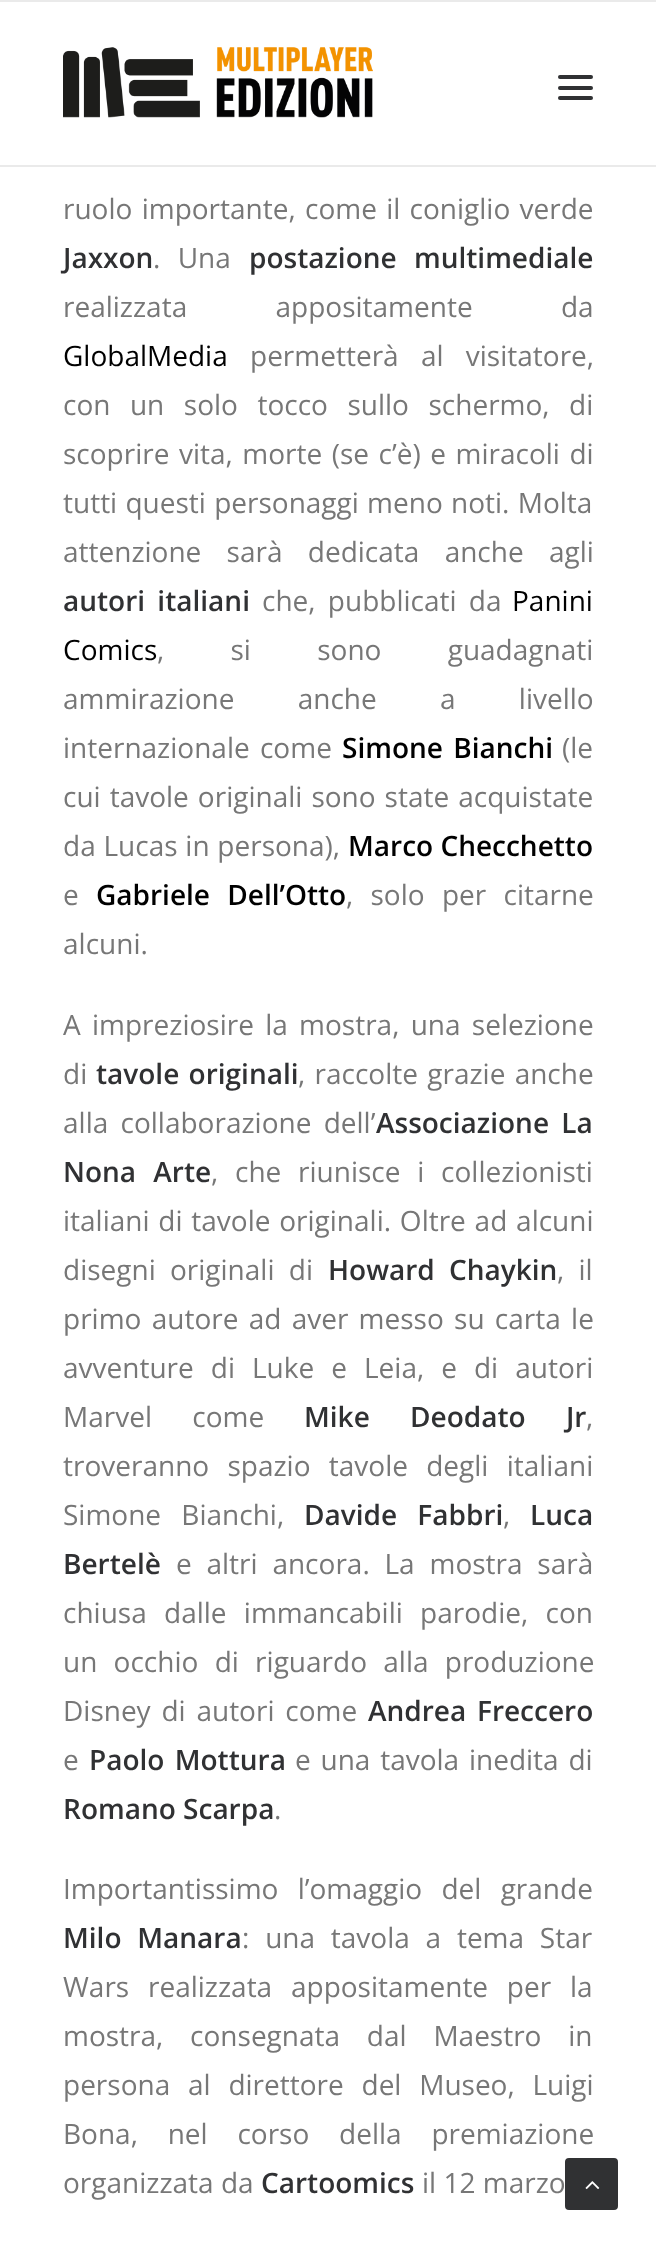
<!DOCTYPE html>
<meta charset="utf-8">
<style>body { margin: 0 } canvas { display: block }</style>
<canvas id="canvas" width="656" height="2248"></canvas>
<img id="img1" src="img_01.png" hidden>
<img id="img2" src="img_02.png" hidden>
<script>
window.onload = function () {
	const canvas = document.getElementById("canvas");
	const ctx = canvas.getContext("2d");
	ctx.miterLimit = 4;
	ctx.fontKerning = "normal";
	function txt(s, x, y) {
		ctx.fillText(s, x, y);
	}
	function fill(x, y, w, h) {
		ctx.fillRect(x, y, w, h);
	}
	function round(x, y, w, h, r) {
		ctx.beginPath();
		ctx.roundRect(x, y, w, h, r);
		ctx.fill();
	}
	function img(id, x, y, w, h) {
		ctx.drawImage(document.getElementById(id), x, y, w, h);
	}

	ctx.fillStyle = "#FFFFFF";
	fill(0, 0, 656, 2248);
	ctx.fillStyle = "#EAEAEA";
	fill(0, 0, 656, 2);
	fill(0, 165, 656, 2);
	img("img1", 63, 47, 310, 71);
	ctx.fillStyle = "#303133";
	round(558, 86, 35, 4, 2);
	round(558, 75, 35, 4, 2);
	round(558, 96, 35, 4, 2);
	ctx.beginPath();
	ctx.roundRect(566, 2159, 51, 50, 3);
	ctx.fill();
	ctx.strokeStyle = "#303133";
	ctx.lineWidth = 2;
	ctx.stroke();
	img("img2", 585, 2181, 15, 9);
	ctx.wordSpacing = "2px";
	ctx.font = "28px Open Sans";
	ctx.fillStyle = "#777777";
	txt("ruolo importante, come il coniglio verde", 63, 219);
	ctx.wordSpacing = "0px";
	ctx.font = "600 28px Open Sans";
	ctx.fillStyle = "#303133";
	txt("Jaxxon", 63, 268);
	ctx.wordSpacing = "10px";
	ctx.font = "28px Open Sans";
	ctx.fillStyle = "#777777";
	txt(". Una", 153, 268);
	ctx.font = "600 28px Open Sans";
	ctx.fillStyle = "#303133";
	txt("postazione multimediale", 249, 268);
	ctx.wordSpacing = "81px";
	ctx.font = "28px Open Sans";
	ctx.fillStyle = "#777777";
	txt("realizzata appositamente da", 63, 317);
	ctx.wordSpacing = "0px";
	ctx.fillStyle = "#000000";
	txt("GlobalMedia", 63, 366);
	ctx.wordSpacing = "15px";
	ctx.fillStyle = "#777777";
	txt("permetterà al visitatore,", 250, 366);
	ctx.wordSpacing = "12.25px";
	txt("con un solo tocco sullo schermo, di", 63, 415);
	ctx.wordSpacing = "2.25px";
	txt("scoprire vita, morte (se c’è) e miracoli di", 63, 464);
	ctx.wordSpacing = "1px";
	txt("tutti questi personaggi meno noti. Molta", 63, 513);
	ctx.wordSpacing = "18px";
	txt("attenzione sarà dedicata anche agli", 63, 562);
	ctx.wordSpacing = "5px";
	ctx.font = "600 28px Open Sans";
	ctx.fillStyle = "#303133";
	txt("autori italiani", 63, 611);
	ctx.font = "28px Open Sans";
	ctx.fillStyle = "#777777";
	txt("che, pubblicati da", 262, 611);
	ctx.wordSpacing = "0px";
	ctx.fillStyle = "#000000";
	txt("Panini", 512, 611);
	txt("Comics", 63, 660);
	ctx.wordSpacing = "59px";
	ctx.fillStyle = "#777777";
	txt(", si sono guadagnati", 157, 660);
	ctx.wordSpacing = "56px";
	txt("ammirazione anche a livello", 63, 709);
	ctx.wordSpacing = "3px";
	txt("internazionale come", 63, 758);
	ctx.font = "600 28px Open Sans";
	ctx.fillStyle = "#000000";
	txt("Simone Bianchi", 342, 758);
	ctx.wordSpacing = "0px";
	ctx.font = "28px Open Sans";
	ctx.fillStyle = "#777777";
	txt("(le", 562, 758);
	ctx.wordSpacing = "1.75px";
	txt("cui tavole originali sono state acquistate", 63, 807);
	ctx.wordSpacing = "0.5px";
	txt("da Lucas in persona),", 63, 856);
	ctx.wordSpacing = "0px";
	ctx.font = "600 28px Open Sans";
	ctx.fillStyle = "#000000";
	txt("Marco Checchetto", 348, 856);
	ctx.font = "28px Open Sans";
	ctx.fillStyle = "#777777";
	txt("e", 63, 905);
	ctx.wordSpacing = "10px";
	ctx.font = "600 28px Open Sans";
	ctx.fillStyle = "#000000";
	txt("Gabriele Dell’Otto", 96, 905);
	ctx.font = "28px Open Sans";
	ctx.fillStyle = "#777777";
	txt(", solo per citarne", 346, 905);
	ctx.wordSpacing = "0px";
	txt("alcuni.", 63, 954);
	ctx.wordSpacing = "4px";
	txt("A impreziosire la mostra, una selezione", 63, 1035);
	ctx.wordSpacing = "0px";
	txt("di", 63, 1084);
	ctx.wordSpacing = "2px";
	ctx.font = "600 28px Open Sans";
	ctx.fillStyle = "#303133";
	txt("tavole originali", 96, 1084);
	ctx.font = "28px Open Sans";
	ctx.fillStyle = "#777777";
	txt(", raccolte grazie anche", 298, 1084);
	ctx.wordSpacing = "5px";
	txt("alla collaborazione dell’", 63, 1133);
	ctx.font = "600 28px Open Sans";
	ctx.fillStyle = "#303133";
	txt("Associazione La", 376, 1133);
	ctx.wordSpacing = "10px";
	txt("Nona Arte", 63, 1182);
	ctx.wordSpacing = "9.5px";
	ctx.font = "28px Open Sans";
	ctx.fillStyle = "#777777";
	txt(", che riunisce i collezionisti", 211, 1182);
	ctx.wordSpacing = "1.5px";
	txt("italiani di tavole originali. Oltre ad alcuni", 63, 1231);
	ctx.wordSpacing = "7px";
	txt("disegni originali di", 63, 1280);
	ctx.font = "600 28px Open Sans";
	ctx.fillStyle = "#303133";
	txt("Howard Chaykin", 328, 1280);
	ctx.font = "28px Open Sans";
	ctx.fillStyle = "#777777";
	txt(", il", 557, 1280);
	ctx.wordSpacing = "3px";
	txt("primo autore ad aver messo su carta le", 63, 1329);
	ctx.wordSpacing = "9.75px";
	txt("avventure di Luke e Leia, e di autori", 63, 1378);
	ctx.wordSpacing = "33px";
	txt("Marvel come", 63, 1427);
	ctx.font = "600 28px Open Sans";
	ctx.fillStyle = "#303133";
	txt("Mike Deodato Jr", 304, 1427);
	ctx.wordSpacing = "0px";
	ctx.font = "28px Open Sans";
	ctx.fillStyle = "#777777";
	txt(",", 586, 1427);
	ctx.wordSpacing = "11px";
	txt("troveranno spazio tavole degli italiani", 63, 1476);
	ctx.wordSpacing = "13px";
	txt("Simone Bianchi,", 63, 1525);
	ctx.font = "600 28px Open Sans";
	ctx.fillStyle = "#303133";
	txt("Davide Fabbri", 304, 1525);
	ctx.wordSpacing = "0px";
	ctx.font = "28px Open Sans";
	ctx.fillStyle = "#777777";
	txt(",", 503, 1525);
	ctx.font = "600 28px Open Sans";
	ctx.fillStyle = "#303133";
	txt("Luca", 530, 1525);
	txt("Bertelè", 63, 1574);
	ctx.wordSpacing = "7.5px";
	ctx.font = "28px Open Sans";
	ctx.fillStyle = "#777777";
	txt("e altri ancora. La mostra sarà", 176, 1574);
	ctx.wordSpacing = "10px";
	txt("chiusa dalle immancabili parodie, con", 63, 1623);
	ctx.wordSpacing = "9px";
	txt("un occhio di riguardo alla produzione", 63, 1672);
	ctx.wordSpacing = "3.5px";
	txt("Disney di autori come", 63, 1721);
	ctx.font = "600 28px Open Sans";
	ctx.fillStyle = "#303133";
	txt("Andrea Freccero", 368, 1721);
	ctx.wordSpacing = "0px";
	ctx.font = "28px Open Sans";
	ctx.fillStyle = "#777777";
	txt("e", 63, 1770);
	ctx.wordSpacing = "3px";
	ctx.font = "600 28px Open Sans";
	ctx.fillStyle = "#303133";
	txt("Paolo Mottura", 89, 1770);
	ctx.wordSpacing = "2.5px";
	ctx.font = "28px Open Sans";
	ctx.fillStyle = "#777777";
	txt("e una tavola inedita di", 295, 1770);
	ctx.wordSpacing = "0px";
	ctx.font = "600 28px Open Sans";
	ctx.fillStyle = "#303133";
	txt("Romano Scarpa", 63, 1819);
	ctx.font = "28px Open Sans";
	ctx.fillStyle = "#777777";
	txt(".", 274, 1819);
	ctx.wordSpacing = "12px";
	txt("Importantissimo l’omaggio del grande", 63, 1899);
	ctx.wordSpacing = "8.5px";
	ctx.font = "600 28px Open Sans";
	ctx.fillStyle = "#303133";
	txt("Milo Manara", 63, 1948);
	ctx.font = "28px Open Sans";
	ctx.fillStyle = "#777777";
	txt(": una tavola a tema Star", 242, 1948);
	ctx.wordSpacing = "11.5px";
	txt("Wars realizzata appositamente per la", 63, 1997);
	ctx.wordSpacing = "19.5px";
	txt("mostra, consegnata dal Maestro in", 63, 2046);
	ctx.wordSpacing = "10.5px";
	txt("persona al direttore del Museo, Luigi", 63, 2095);
	ctx.wordSpacing = "22.5px";
	txt("Bona, nel corso della premiazione", 63, 2144);
	ctx.wordSpacing = "0px";
	txt("organizzata da", 63, 2193);
	ctx.font = "600 28px Open Sans";
	ctx.fillStyle = "#303133";
	txt("Cartoomics", 261, 2193);
	ctx.font = "28px Open Sans";
	ctx.fillStyle = "#777777";
	txt("il 12 marzo", 422, 2193);
};
</script>
